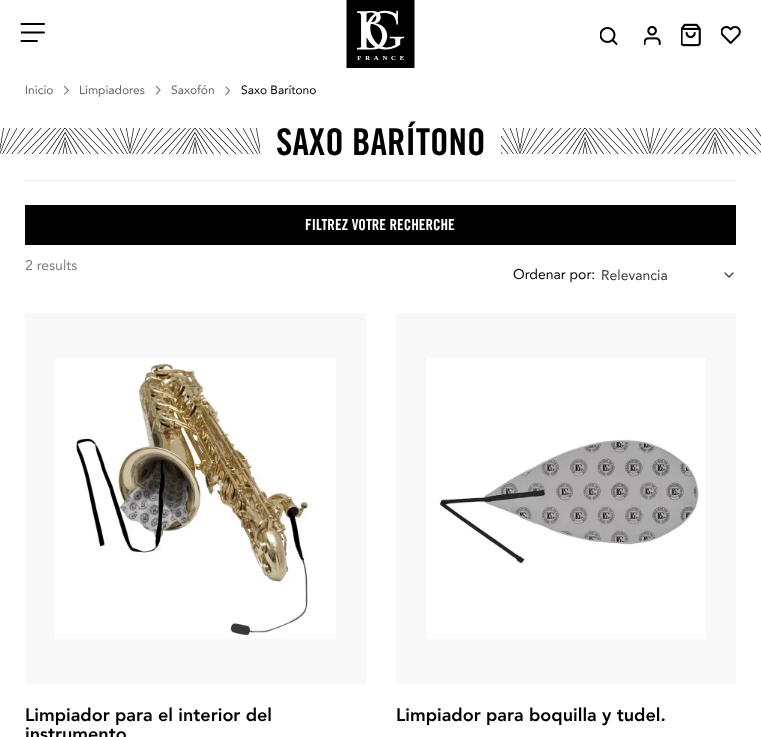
<!DOCTYPE html>
<meta charset="utf-8">
<style>body { margin: 0 } canvas { display: block }</style>
<canvas id="canvas" width="761" height="737"></canvas>
<img id="img1" src="img_01.png" hidden>
<img id="img2" src="img_02.png" hidden>
<img id="img3" src="img_03.png" hidden>
<img id="img4" src="img_04.png" hidden>
<img id="img5" src="img_05.png" hidden>
<img id="img6" src="img_06.png" hidden>
<img id="img7" src="img_07.png" hidden>
<img id="img8" src="img_08.png" hidden>
<script>
window.onload = function () {
	const canvas = document.getElementById("canvas");
	const ctx = canvas.getContext("2d");
	ctx.miterLimit = 4;
	ctx.fontKerning = "normal";
	function txt(s, x, y) {
		ctx.fillText(s, x, y);
	}
	function fill(x, y, w, h) {
		ctx.fillRect(x, y, w, h);
	}
	function img(id, x, y, w, h) {
		ctx.drawImage(document.getElementById(id), x, y, w, h);
	}

	ctx.fillStyle = "#FFFFFF";
	fill(0, 0, 761, 737);
	ctx.save();
	ctx.beginPath();
	ctx.rect(21, 23, 25, 19);
	ctx.clip();
	ctx.beginPath();
	ctx.moveTo(21.5, 32.5);
	ctx.lineTo(44, 32.5);
	ctx.strokeStyle = "#000000";
	ctx.lineWidth = 2;
	ctx.lineCap = "round";
	ctx.lineJoin = "round";
	ctx.stroke();
	ctx.restore();
	ctx.beginPath();
	ctx.moveTo(21.5, 24);
	ctx.lineTo(44, 24);
	ctx.moveTo(21.5, 41);
	ctx.lineTo(37, 41);
	ctx.strokeStyle = "#000000";
	ctx.lineWidth = 2;
	ctx.lineCap = "round";
	ctx.lineJoin = "round";
	ctx.stroke();
	img("img1", 346, 0, 69, 68);
	img("img2", 600, 27, 18, 18);
	img("img3", 644, 26, 17, 19);
	img("img4", 681, 23, 20, 24);
	img("img5", 721, 26, 20, 18);
	ctx.beginPath();
	ctx.moveTo(64.5, 94);
	ctx.lineTo(68.5, 90.5);
	ctx.lineTo(64.5, 86.5);
	ctx.strokeStyle = "#85898C";
	ctx.lineWidth = 1.2;
	ctx.stroke();
	ctx.beginPath();
	ctx.moveTo(156.5, 94);
	ctx.lineTo(160, 90);
	ctx.lineTo(156.5, 86.5);
	ctx.stroke();
	ctx.beginPath();
	ctx.moveTo(226, 94.5);
	ctx.lineTo(229.5, 90.5);
	ctx.lineTo(226, 87);
	ctx.stroke();
	img("img6", 0, 128, 761, 27);
	fill(260, 128, 241, 27);
	ctx.fillStyle = "#EBEBEB";
	fill(25, 180, 711, 1);
	ctx.fillStyle = "#000000";
	fill(25, 205, 711, 40);
	ctx.beginPath();
	ctx.moveTo(725, 273);
	ctx.lineTo(729, 277);
	ctx.lineTo(733, 273);
	ctx.strokeStyle = "#343A40";
	ctx.stroke();
	ctx.fillStyle = "#F8F8F8";
	fill(25, 313, 341, 371);
	img("img7", 55, 358, 281, 281);
	fill(396, 313, 340, 371);
	img("img8", 426, 358, 280, 281);
	ctx.font = "12px Avenir";
	ctx.fillStyle = "#666666";
	txt("Inicio", 25, 94);
	txt("Limpiadores", 79, 94);
	txt("Saxofón", 171, 94);
	ctx.fillStyle = "#000000";
	txt("Saxo Barítono", 241, 94);
	ctx.font = "bold 37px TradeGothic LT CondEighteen";
	txt("SAXO BARÍTONO", 276, 155);
	ctx.font = "bold 15.1px TradeGothic LT CondEighteen";
	ctx.fillStyle = "#FFFFFF";
	txt("FILTREZ VOTRE RECHERCHE", 305, 230);
	ctx.font = "14px Avenir";
	ctx.fillStyle = "#808080";
	txt("2 results", 25, 270);
	ctx.fillStyle = "#000000";
	txt("Ordenar por:", 513, 279);
	ctx.fillStyle = "#343A40";
	txt("Relevancia", 601, 280);
	ctx.font = "900 18px Avenir";
	ctx.fillStyle = "#000000";
	txt("Limpiador para el interior del", 25, 721);
	txt("instrumento", 25, 740);
	txt("Limpiador para boquilla y tudel.", 396, 721);
};
</script>
